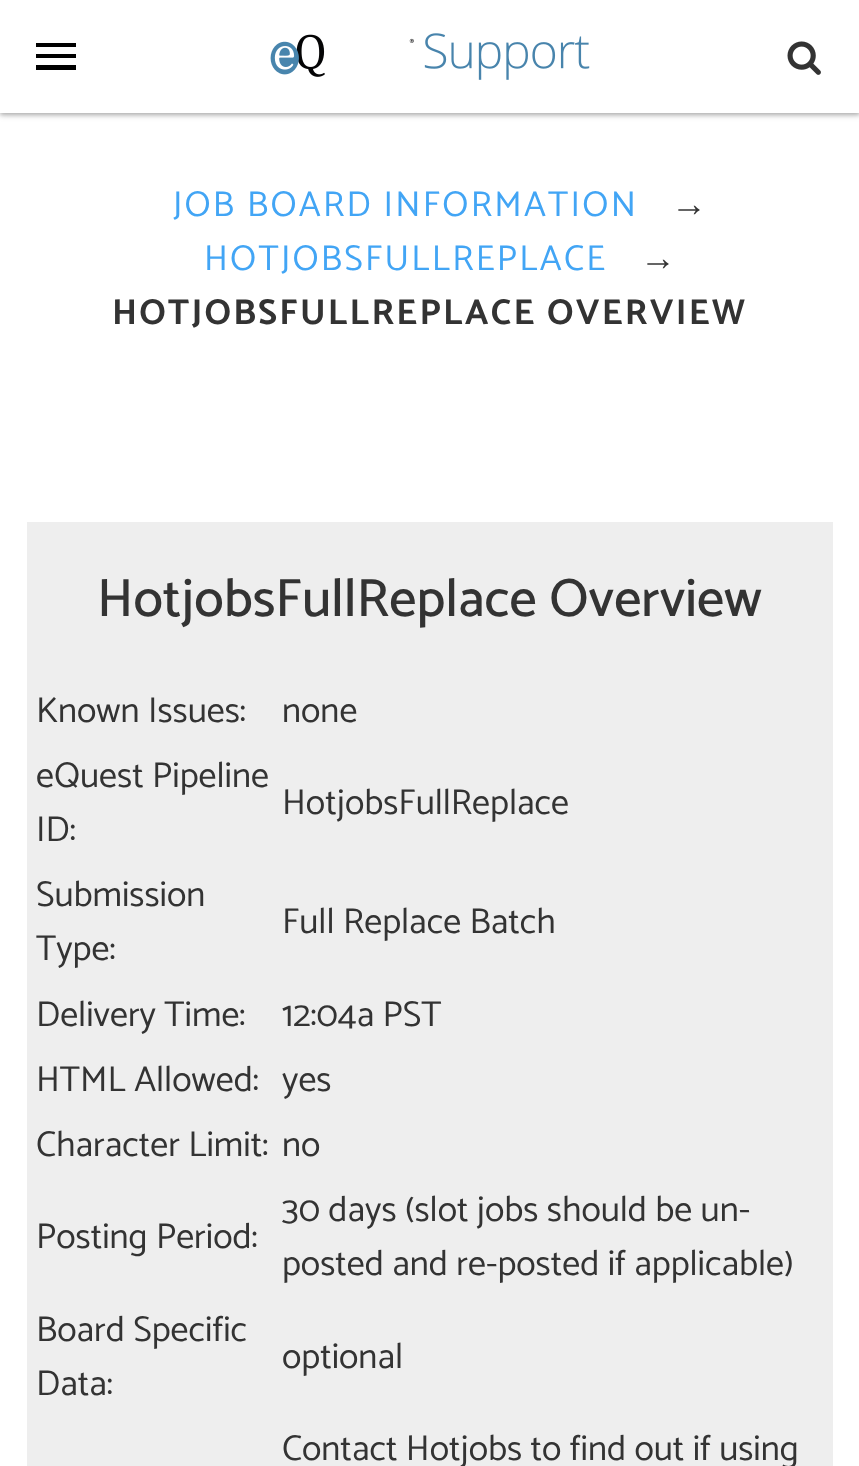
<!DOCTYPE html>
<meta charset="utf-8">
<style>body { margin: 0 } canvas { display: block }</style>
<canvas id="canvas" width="859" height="1466"></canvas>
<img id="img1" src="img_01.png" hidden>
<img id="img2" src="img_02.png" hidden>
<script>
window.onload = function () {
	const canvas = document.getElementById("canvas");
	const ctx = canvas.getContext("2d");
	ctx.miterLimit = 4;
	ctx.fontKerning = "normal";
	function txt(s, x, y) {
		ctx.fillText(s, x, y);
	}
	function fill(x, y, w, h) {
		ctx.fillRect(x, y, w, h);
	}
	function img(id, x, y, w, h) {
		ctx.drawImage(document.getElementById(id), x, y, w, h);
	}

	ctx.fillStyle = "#FFFFFF";
	fill(0, 0, 859, 1466);
	ctx.fillStyle = "rgba(0, 0, 0, 0.24)";
	ctx.filter = "blur(2px)";
	ctx.beginPath();
	ctx.rect(0, 2, 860, 113);
	ctx.fill();
	ctx.filter = "none";
	ctx.fillStyle = "rgba(0, 0, 0, 0.12)";
	ctx.filter = "blur(3.5px)";
	ctx.beginPath();
	ctx.rect(0, 2, 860, 113);
	ctx.fill();
	ctx.filter = "none";
	ctx.fillStyle = "#FFFFFF";
	fill(0, 0, 859, 113);
	ctx.fillStyle = "#000000";
	ctx.beginPath();
	ctx.moveTo(36, 70);
	ctx.lineTo(76, 70);
	ctx.lineTo(76, 65);
	ctx.lineTo(36, 65);
	ctx.closePath();
	ctx.moveTo(36, 58);
	ctx.lineTo(76, 58);
	ctx.lineTo(76, 54);
	ctx.lineTo(36, 54);
	ctx.closePath();
	ctx.moveTo(36, 43);
	ctx.lineTo(36, 47);
	ctx.lineTo(76, 47);
	ctx.lineTo(76, 43);
	ctx.closePath();
	ctx.fill();
	img("img1", 270, 33, 320, 47);
	img("img2", 787, 41, 34, 34);
	ctx.fillStyle = "#EEEEEE";
	fill(27, 522, 806, 944);
	ctx.letterSpacing = "2.25px";
	ctx.font = "36px Catamaran";
	ctx.fillStyle = "#42A5F5";
	txt("JOB BOARD INFORMATION", 173, 216);
	ctx.font = "36px Liberation Sans";
	ctx.fillStyle = "#333333";
	txt("→", 671, 216);
	ctx.font = "36px Catamaran";
	ctx.fillStyle = "#42A5F5";
	txt("HOTJOBSFULLREPLACE", 204, 270);
	ctx.font = "36px Liberation Sans";
	ctx.fillStyle = "#333333";
	txt("→", 640, 270);
	ctx.font = "bold 36px Catamaran";
	txt("HOTJOBSFULLREPLACE OVERVIEW", 112, 324);
	ctx.letterSpacing = "0px";
	ctx.font = "500 54px Catamaran";
	txt("HotjobsFullReplace Overview", 97, 616);
	ctx.font = "36px Catamaran";
	txt("Known Issues:", 36, 722);
	txt("none", 282, 722);
	txt("eQuest Pipeline", 36, 787);
	txt("ID:", 36, 841);
	txt("HotjobsFullReplace", 282, 814);
	txt("Submission", 36, 906);
	txt("Type:", 36, 960);
	txt("Full Replace Batch", 282, 933);
	txt("Delivery Time:", 36, 1026);
	txt("12:04a PST", 282, 1026);
	txt("HTML Allowed:", 36, 1091);
	txt("yes", 282, 1091);
	txt("Character Limit:", 36, 1156);
	txt("no", 282, 1156);
	txt("Posting Period:", 36, 1248);
	txt("30 days (slot jobs should be un-", 282, 1221);
	txt("posted and re-posted if applicable)", 282, 1275);
	txt("Board Specific", 36, 1341);
	txt("Data:", 36, 1395);
	txt("optional", 282, 1368);
	txt("Contact Hotjobs to find out if using", 282, 1460);
};
</script>
